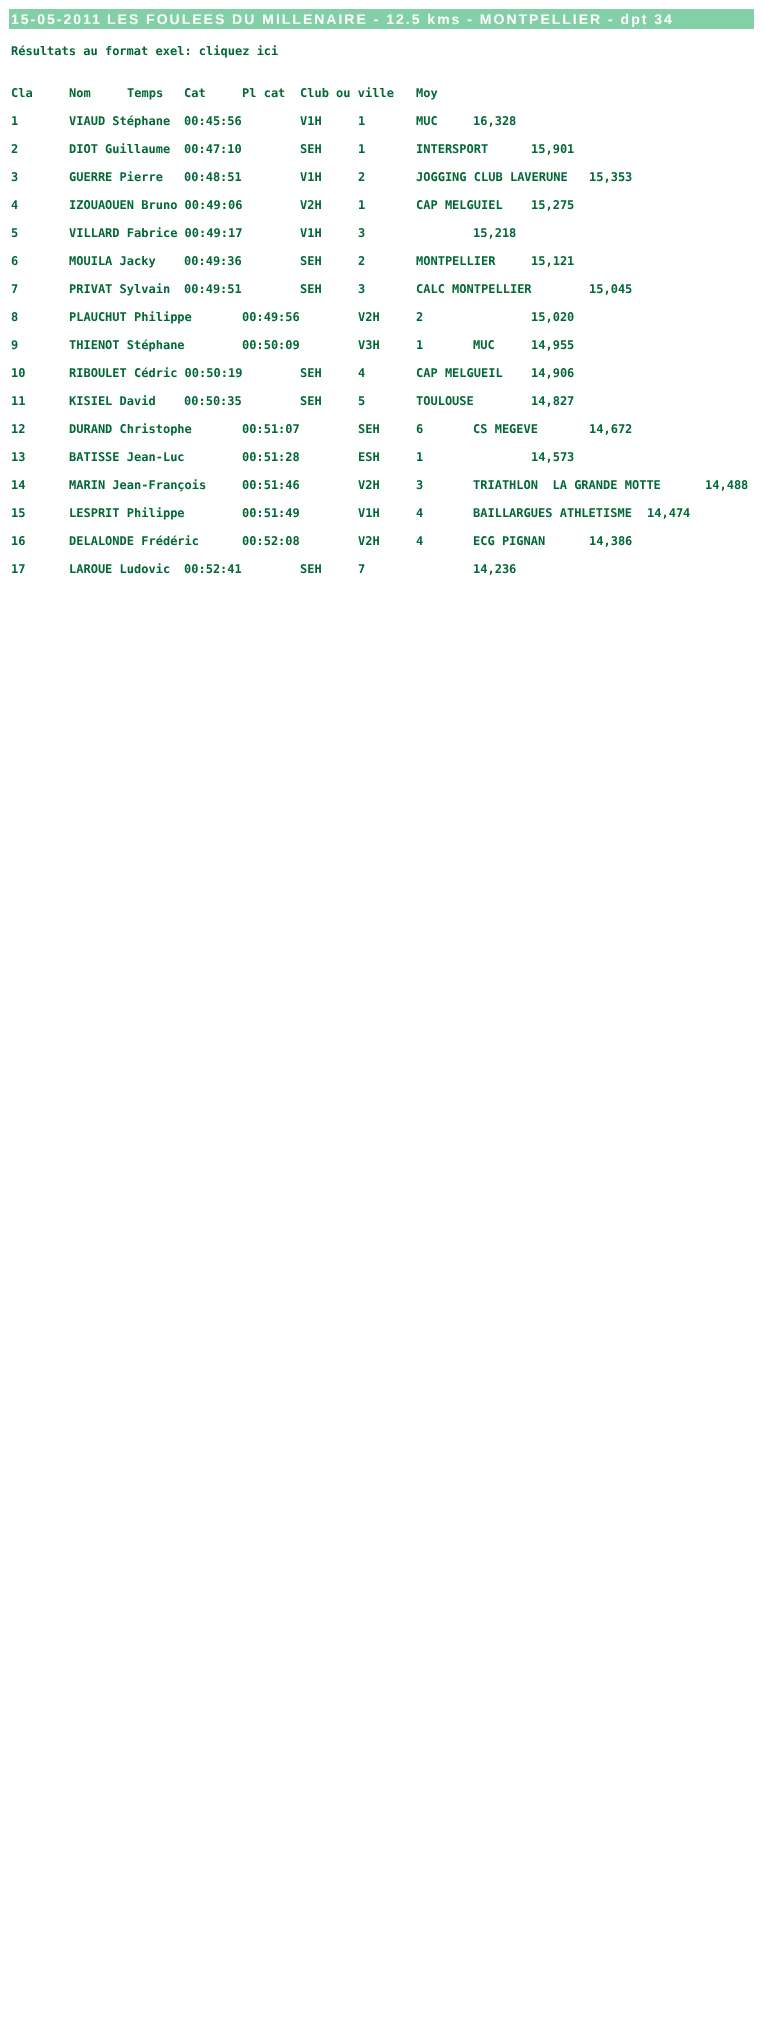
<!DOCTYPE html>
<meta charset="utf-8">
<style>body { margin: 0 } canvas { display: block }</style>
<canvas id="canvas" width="763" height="2026"></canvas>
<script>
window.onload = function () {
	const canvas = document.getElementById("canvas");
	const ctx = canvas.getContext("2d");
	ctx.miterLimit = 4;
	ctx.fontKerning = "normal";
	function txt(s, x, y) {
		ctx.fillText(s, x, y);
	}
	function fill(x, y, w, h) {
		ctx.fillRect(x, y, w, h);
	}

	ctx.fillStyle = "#FFFFFF";
	fill(0, 0, 763, 2026);
	ctx.fillStyle = "#83CFA7";
	fill(9, 9, 745, 20);
	ctx.letterSpacing = "2px";
	ctx.font = "bold 14px Liberation Sans";
	ctx.fillStyle = "#FFFFFF";
	txt("15-05-2011", 11, 24);
	txt("LES FOULEES DU MILLENAIRE - 12.5 kms - MONTPELLIER - dpt 34", 107, 24);
	ctx.letterSpacing = "0px";
	ctx.font = "bold 12px DejaVu Sans Mono";
	ctx.fillStyle = "#026836";
	txt("Résultats au format exel: cliquez ici", 11, 55);
	txt("Cla", 11, 97);
	txt("Nom", 69, 97);
	txt("Temps", 127, 97);
	txt("Cat", 184, 97);
	txt("Pl cat", 242, 97);
	txt("Club ou ville", 300, 97);
	txt("Moy", 416, 97);
	txt("1", 11, 125);
	txt("VIAUD Stéphane", 69, 125);
	txt("00:45:56", 184, 125);
	txt("V1H", 300, 125);
	txt("1", 358, 125);
	txt("MUC", 416, 125);
	txt("16,328", 473, 125);
	txt("2", 11, 153);
	txt("DIOT Guillaume", 69, 153);
	txt("00:47:10", 184, 153);
	txt("SEH", 300, 153);
	txt("1", 358, 153);
	txt("INTERSPORT", 416, 153);
	txt("15,901", 531, 153);
	txt("3", 11, 181);
	txt("GUERRE Pierre", 69, 181);
	txt("00:48:51", 184, 181);
	txt("V1H", 300, 181);
	txt("2", 358, 181);
	txt("JOGGING CLUB LAVERUNE", 416, 181);
	txt("15,353", 589, 181);
	txt("4", 11, 209);
	txt("IZOUAOUEN Bruno 00:49:06", 69, 209);
	txt("V2H", 300, 209);
	txt("1", 358, 209);
	txt("CAP MELGUIEL", 416, 209);
	txt("15,275", 531, 209);
	txt("5", 11, 237);
	txt("VILLARD Fabrice 00:49:17", 69, 237);
	txt("V1H", 300, 237);
	txt("3", 358, 237);
	txt("15,218", 473, 237);
	txt("6", 11, 265);
	txt("MOUILA Jacky", 69, 265);
	txt("00:49:36", 184, 265);
	txt("SEH", 300, 265);
	txt("2", 358, 265);
	txt("MONTPELLIER", 416, 265);
	txt("15,121", 531, 265);
	txt("7", 11, 293);
	txt("PRIVAT Sylvain", 69, 293);
	txt("00:49:51", 184, 293);
	txt("SEH", 300, 293);
	txt("3", 358, 293);
	txt("CALC MONTPELLIER", 416, 293);
	txt("15,045", 589, 293);
	txt("8", 11, 321);
	txt("PLAUCHUT Philippe", 69, 321);
	txt("00:49:56", 242, 321);
	txt("V2H", 358, 321);
	txt("2", 416, 321);
	txt("15,020", 531, 321);
	txt("9", 11, 349);
	txt("THIENOT Stéphane", 69, 349);
	txt("00:50:09", 242, 349);
	txt("V3H", 358, 349);
	txt("1", 416, 349);
	txt("MUC", 473, 349);
	txt("14,955", 531, 349);
	txt("10", 11, 377);
	txt("RIBOULET Cédric 00:50:19", 69, 377);
	txt("SEH", 300, 377);
	txt("4", 358, 377);
	txt("CAP MELGUEIL", 416, 377);
	txt("14,906", 531, 377);
	txt("11", 11, 405);
	txt("KISIEL David", 69, 405);
	txt("00:50:35", 184, 405);
	txt("SEH", 300, 405);
	txt("5", 358, 405);
	txt("TOULOUSE", 416, 405);
	txt("14,827", 531, 405);
	txt("12", 11, 433);
	txt("DURAND Christophe", 69, 433);
	txt("00:51:07", 242, 433);
	txt("SEH", 358, 433);
	txt("6", 416, 433);
	txt("CS MEGEVE", 473, 433);
	txt("14,672", 589, 433);
	txt("13", 11, 461);
	txt("BATISSE Jean-Luc", 69, 461);
	txt("00:51:28", 242, 461);
	txt("ESH", 358, 461);
	txt("1", 416, 461);
	txt("14,573", 531, 461);
	txt("14", 11, 489);
	txt("MARIN Jean-François", 69, 489);
	txt("00:51:46", 242, 489);
	txt("V2H", 358, 489);
	txt("3", 416, 489);
	txt("TRIATHLON  LA GRANDE MOTTE", 473, 489);
	txt("14,488", 705, 489);
	txt("15", 11, 517);
	txt("LESPRIT Philippe", 69, 517);
	txt("00:51:49", 242, 517);
	txt("V1H", 358, 517);
	txt("4", 416, 517);
	txt("BAILLARGUES ATHLETISME", 473, 517);
	txt("14,474", 647, 517);
	txt("16", 11, 545);
	txt("DELALONDE Frédéric", 69, 545);
	txt("00:52:08", 242, 545);
	txt("V2H", 358, 545);
	txt("4", 416, 545);
	txt("ECG PIGNAN", 473, 545);
	txt("14,386", 589, 545);
	txt("17", 11, 573);
	txt("LAROUE Ludovic", 69, 573);
	txt("00:52:41", 184, 573);
	txt("SEH", 300, 573);
	txt("7", 358, 573);
	txt("14,236", 473, 573);
};
</script>
